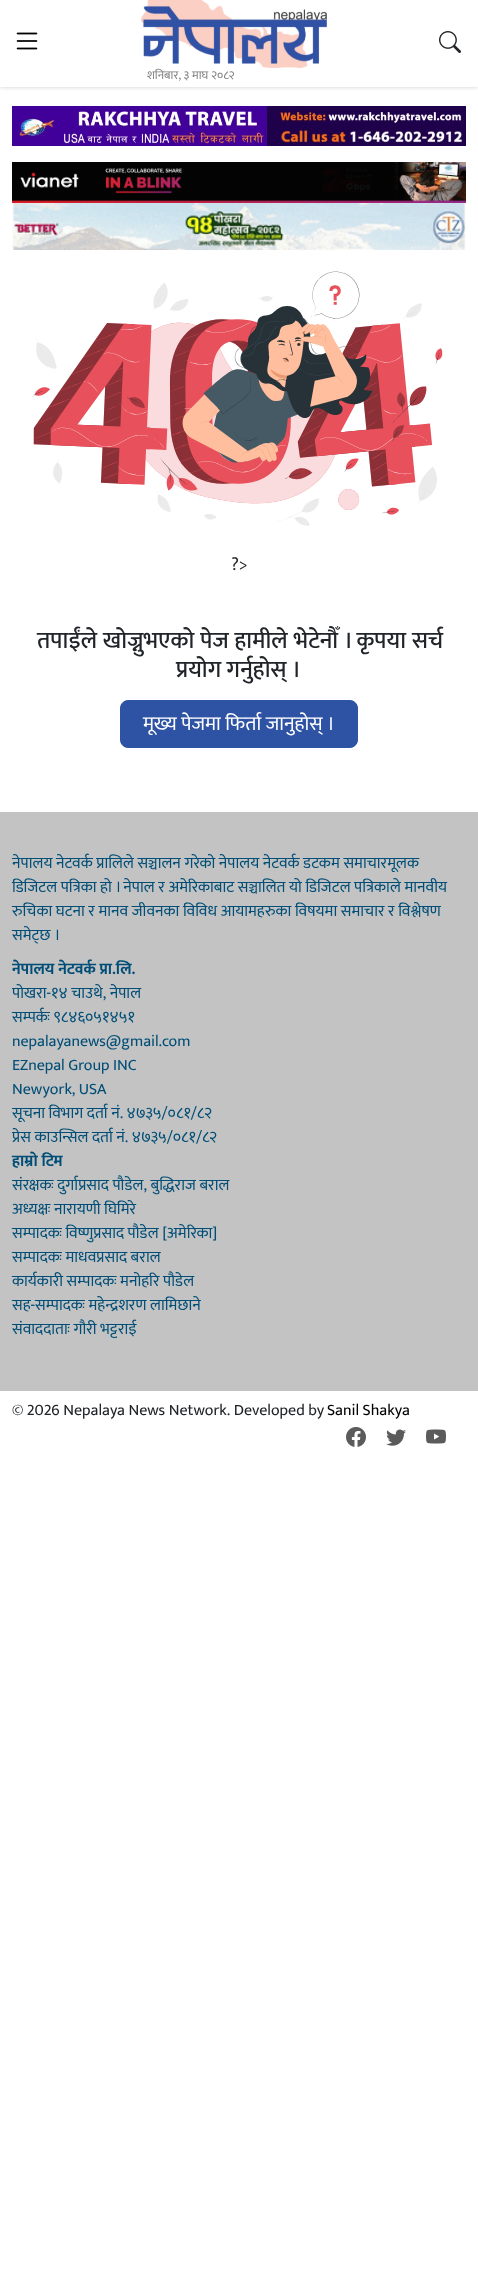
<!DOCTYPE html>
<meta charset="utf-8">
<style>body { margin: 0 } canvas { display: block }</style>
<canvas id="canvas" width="478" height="2290"></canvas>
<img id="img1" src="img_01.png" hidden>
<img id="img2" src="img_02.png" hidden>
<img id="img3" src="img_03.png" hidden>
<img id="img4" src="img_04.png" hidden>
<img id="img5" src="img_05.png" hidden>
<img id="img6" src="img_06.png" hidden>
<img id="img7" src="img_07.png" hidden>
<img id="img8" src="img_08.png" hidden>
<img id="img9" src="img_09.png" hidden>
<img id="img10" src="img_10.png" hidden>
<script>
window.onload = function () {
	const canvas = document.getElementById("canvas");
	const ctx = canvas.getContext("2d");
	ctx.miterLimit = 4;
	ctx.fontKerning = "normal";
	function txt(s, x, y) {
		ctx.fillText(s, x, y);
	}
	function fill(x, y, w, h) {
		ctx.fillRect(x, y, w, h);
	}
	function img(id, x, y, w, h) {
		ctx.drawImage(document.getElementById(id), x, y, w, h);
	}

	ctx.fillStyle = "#FFFFFF";
	fill(0, 0, 478, 2290);
	ctx.save();
	ctx.beginPath();
	ctx.rect(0, 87, 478, 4);
	ctx.clip();
	ctx.fillStyle = "#CCCCCC";
	ctx.filter = "blur(2px)";
	ctx.beginPath();
	ctx.rect(0, 0, 478, 87);
	ctx.fill();
	ctx.filter = "none";
	ctx.restore();
	img("img1", 16, 32, 22, 18);
	img("img2", 439, 31, 22, 22);
	img("img3", 141, 0, 186, 68);
	img("img4", 12, 106, 454, 40);
	img("img5", 12, 162, 454, 41);
	img("img6", 12, 203, 454, 47);
	img("img7", 32, 271, 411, 255);
	ctx.fillStyle = "#2E52A4";
	ctx.beginPath();
	ctx.roundRect(120.5, 700.5, 237, 47, 7.5);
	ctx.fill();
	ctx.strokeStyle = "#2E52A4";
	ctx.stroke();
	ctx.fillStyle = "#C3C3C3";
	fill(0, 812, 478, 579);
	img("img8", 346, 1427, 20, 20);
	img("img9", 386, 1429, 20, 17);
	img("img10", 426, 1429, 20, 15);
	ctx.font = "12px Mukta";
	ctx.fillStyle = "#808080";
	txt("शनिबार, ३ माघ २०८२", 147, 79);
	ctx.font = "18px Mukta";
	ctx.fillStyle = "#212529";
	txt("?>", 231, 570);
	ctx.wordSpacing = "0.5px";
	ctx.font = "500 23.7px Mukta";
	txt("तपाईंले खोज्नुभएको पेज हामीले भेटेनौँ । कृपया सर्च", 37, 648);
	ctx.wordSpacing = "0px";
	txt("प्रयोग गर्नुहोस् ।", 176, 677);
	ctx.font = "20px Mukta";
	ctx.fillStyle = "#FFFFFF";
	txt("मूख्य पेजमा फिर्ता जानुहोस् ।", 143, 730);
	ctx.save();
	ctx.beginPath();
	ctx.rect(12, 852, 454, 106);
	ctx.clip();
	ctx.font = "16px Mukta";
	ctx.fillStyle = "#004E77";
	txt("नेपालय नेटवर्क प्रालिले सञ्चालन गरेको नेपालय नेटवर्क डटकम समाचारमूलक", 12, 868);
	ctx.restore();
	ctx.font = "16px Mukta";
	ctx.fillStyle = "#004E77";
	txt("डिजिटल पत्रिका हो । नेपाल र अमेरिकाबाट सञ्चालित यो डिजिटल पत्रिकाले मानवीय", 12, 892);
	txt("रुचिका घटना र मानव जीवनका विविध आयामहरुका विषयमा समाचार र विश्लेषण", 12, 916);
	txt("समेट्छ ।", 12, 940);
	ctx.save();
	ctx.beginPath();
	ctx.rect(12, 958, 454, 96);
	ctx.clip();
	ctx.font = "bold 16px Mukta";
	txt("नेपालय नेटवर्क प्रा.लि.", 12, 974);
	ctx.font = "16px Mukta";
	txt("पोखरा-१४ चाउथे, नेपाल", 12, 998);
	ctx.restore();
	txt("सम्पर्कः ९८४६०५१४५१", 12, 1022);
	txt("nepalayanews@gmail.com", 12, 1046);
	txt("EZnepal Group INC", 12, 1070);
	txt("Newyork, USA", 12, 1094);
	ctx.save();
	ctx.beginPath();
	ctx.rect(12, 1102, 454, 48);
	ctx.clip();
	txt("सूचना विभाग दर्ता नं. ४७३५/०८१/८२", 12, 1118);
	txt("प्रेस काउन्सिल दर्ता नं. ४७३५/०८१/८२", 12, 1142);
	ctx.restore();
	ctx.font = "bold 16px Mukta";
	txt("हाम्रो टिम", 12, 1166);
	ctx.save();
	ctx.beginPath();
	ctx.rect(12, 1174, 454, 168);
	ctx.clip();
	ctx.font = "16px Mukta";
	txt("संरक्षकः दुर्गाप्रसाद पौडेल, बुद्धिराज बराल", 12, 1190);
	ctx.restore();
	ctx.font = "16px Mukta";
	txt("अध्यक्षः नारायणी घिमिरे", 12, 1214);
	txt("सम्पादकः विष्णुप्रसाद पौडेल [अमेरिका]", 12, 1238);
	txt("सम्पादकः माधवप्रसाद बराल", 12, 1262);
	txt("कार्यकारी सम्पादकः मनोहरि पौडेल", 12, 1286);
	txt("सह-सम्पादकः महेन्द्रशरण लामिछाने", 12, 1310);
	ctx.save();
	ctx.beginPath();
	ctx.rect(12, 1174, 454, 168);
	ctx.clip();
	txt("संवाददाताः गौरी भट्टराई", 12, 1334);
	ctx.restore();
	ctx.fillStyle = "#212529";
	txt("© 2026 Nepalaya News Network. Developed by", 12, 1415);
	ctx.fillStyle = "#000000";
	txt("Sanil Shakya", 327, 1415);
};
</script>
